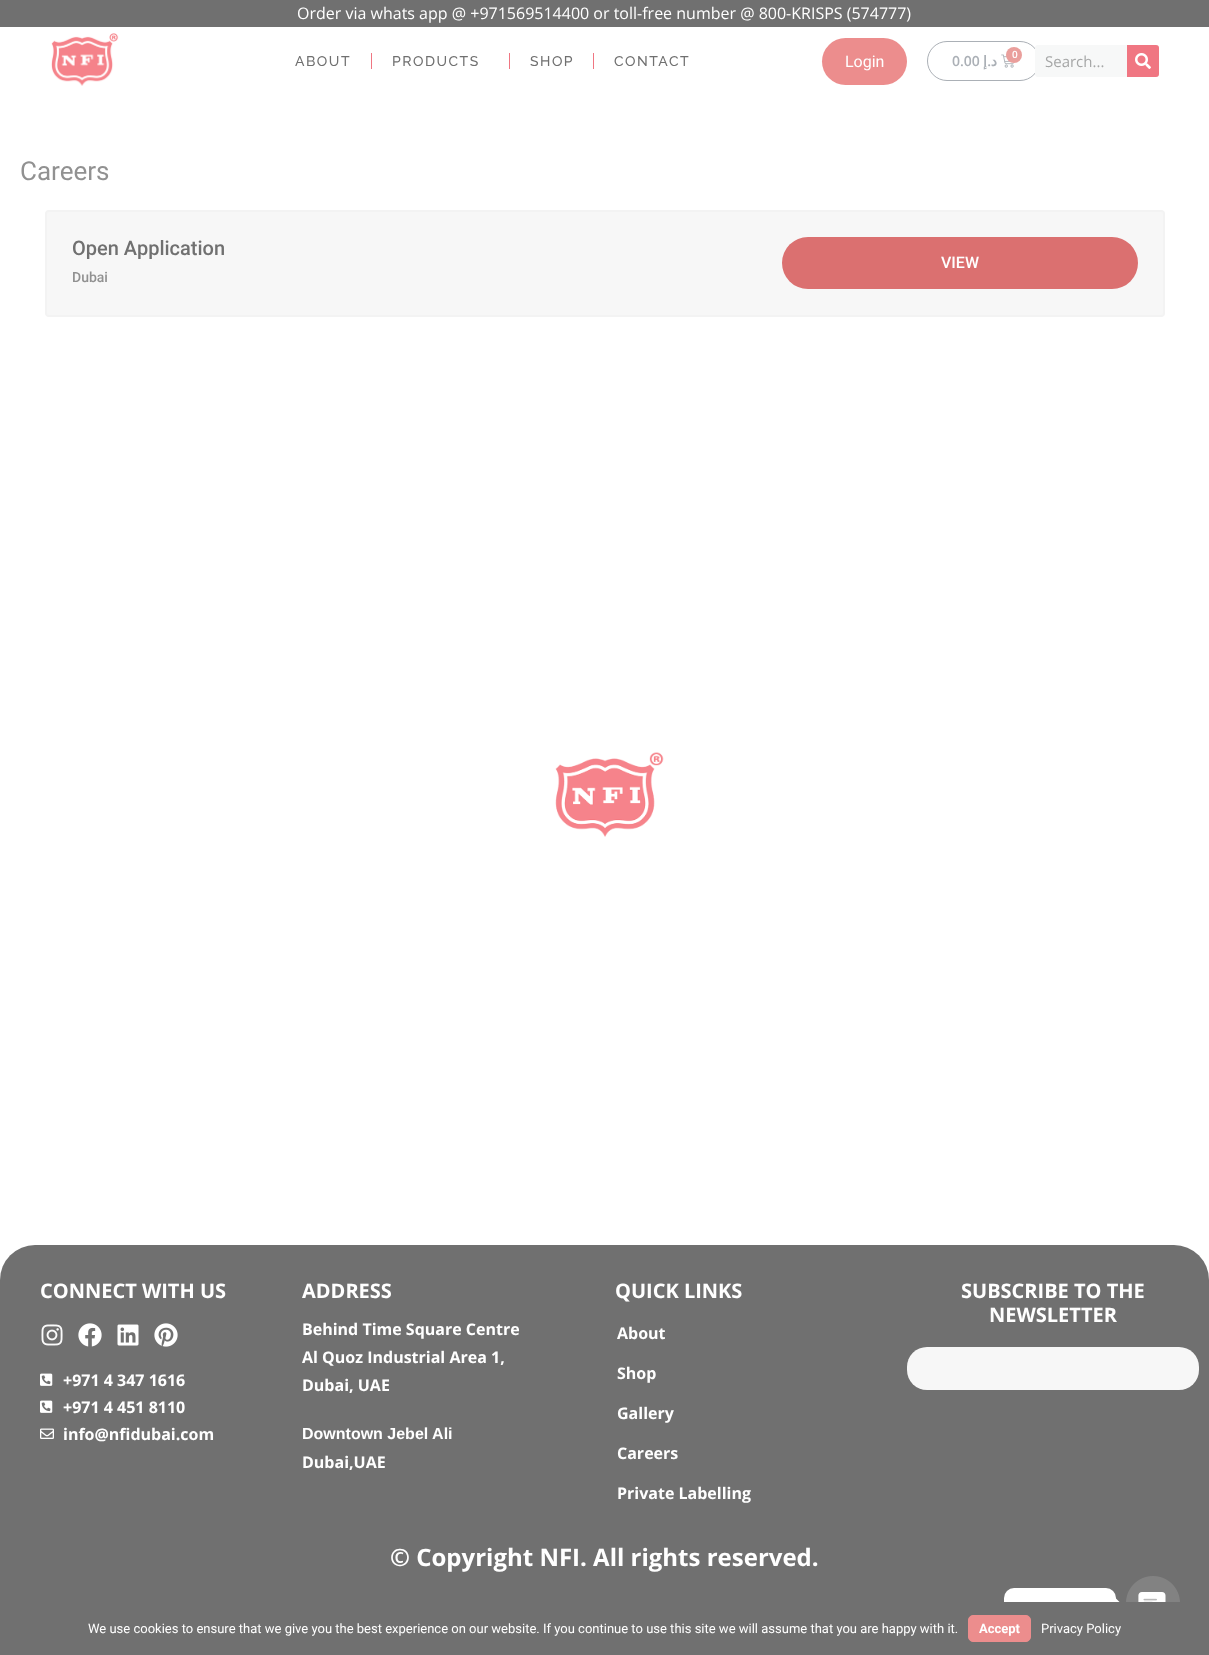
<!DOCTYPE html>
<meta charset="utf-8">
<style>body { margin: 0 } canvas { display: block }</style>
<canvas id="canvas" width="1209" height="1655"></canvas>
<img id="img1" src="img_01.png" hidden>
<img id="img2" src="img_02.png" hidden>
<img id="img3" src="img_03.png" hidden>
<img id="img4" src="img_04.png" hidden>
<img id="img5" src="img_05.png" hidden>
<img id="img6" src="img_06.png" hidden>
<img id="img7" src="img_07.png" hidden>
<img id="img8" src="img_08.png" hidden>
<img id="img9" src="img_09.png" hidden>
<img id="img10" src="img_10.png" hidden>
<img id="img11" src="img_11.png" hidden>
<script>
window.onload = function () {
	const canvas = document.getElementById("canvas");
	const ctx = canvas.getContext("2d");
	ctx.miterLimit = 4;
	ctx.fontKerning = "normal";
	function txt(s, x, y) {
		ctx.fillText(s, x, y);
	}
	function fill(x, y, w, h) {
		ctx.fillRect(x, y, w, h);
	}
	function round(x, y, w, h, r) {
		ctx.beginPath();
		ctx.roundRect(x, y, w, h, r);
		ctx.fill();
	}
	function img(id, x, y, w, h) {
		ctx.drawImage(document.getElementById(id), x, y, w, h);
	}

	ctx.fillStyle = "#FFFFFF";
	fill(0, 0, 1209, 1655);
	ctx.fillStyle = "#707070";
	fill(0, 0, 1209, 27);
	img("img1", 51, 33, 68, 53);
	ctx.fillStyle = "#F07682";
	fill(371, 53, 1, 16);
	fill(509, 53, 1, 16);
	fill(593, 53, 1, 16);
	ctx.fillStyle = "#EC8D8D";
	round(822, 38, 85, 47, 23.5);
	ctx.beginPath();
	ctx.roundRect(927.5, 41.5, 112, 39, 19.5);
	ctx.strokeStyle = "#ABB0B6";
	ctx.stroke();
	img("img2", 1001, 54, 13, 14);
	ctx.fillStyle = "#EA9F9C";
	ctx.beginPath();
	ctx.arc(1014, 55, 8, 0, Math.PI * 2);
	ctx.fill();
	ctx.fillStyle = "#F7F8F8";
	round(1035, 45, 124, 32, 3);
	ctx.fillStyle = "#F07682";
	ctx.beginPath();
	ctx.roundRect(1127, 45, 32, 32, [0, 3, 3, 0]);
	ctx.fill();
	img("img3", 1135, 53, 16, 16);
	ctx.fillStyle = "#F7F7F7";
	ctx.beginPath();
	ctx.roundRect(46, 211, 1118, 105, 3);
	ctx.fill();
	ctx.strokeStyle = "#F3F3F3";
	ctx.lineWidth = 2;
	ctx.stroke();
	ctx.fillStyle = "#DB7070";
	round(782, 237, 356, 52, 26);
	ctx.fillStyle = "#707070";
	round(0, 1245, 1209, 410, 35);
	img("img4", 41, 1324, 22, 22);
	img("img5", 78, 1323, 24, 24);
	img("img6", 117, 1324, 22, 22);
	img("img7", 154, 1323, 24, 24);
	img("img8", 40, 1373, 13, 13);
	img("img8", 40, 1400, 13, 13);
	img("img9", 40, 1428, 14, 11);
	ctx.fillStyle = "#F7F7F7";
	round(907, 1347, 292, 43, 20);
	ctx.fillStyle = "#FFFFFF";
	round(1004, 1588, 112, 31, 10);
	ctx.beginPath();
	ctx.moveTo(1116, 1608.5);
	ctx.lineTo(1116, 1598.5);
	ctx.lineTo(1121, 1603.5);
	ctx.closePath();
	ctx.fill();
	img("img10", 1126, 1576, 54, 26);
	ctx.fillStyle = "#707070";
	fill(0, 1602, 1209, 53);
	ctx.fillStyle = "#EC8D8D";
	ctx.beginPath();
	ctx.roundRect(968.5, 1615.5, 62, 26, 4.5);
	ctx.fill();
	ctx.strokeStyle = "#EC8D8D";
	ctx.lineWidth = 1;
	ctx.stroke();
	img("img11", 555, 752, 109, 85);
	ctx.font = "16px Open Sans";
	ctx.fillStyle = "#FFFFFF";
	txt("Order via whats app @ +971569514400 or toll-free number @ 800-KRISPS (574777)", 297, 19);
	ctx.letterSpacing = "1.5px";
	ctx.font = "500 14px Raleway";
	ctx.fillStyle = "#707070";
	txt("ABOUT", 295, 66);
	txt("PRODUCTS", 392, 66);
	txt("SHOP", 530, 66);
	txt("CONTACT", 614, 66);
	ctx.letterSpacing = "0px";
	ctx.font = "16px Roboto";
	ctx.fillStyle = "#FFFFFF";
	txt("Login", 845, 67);
	ctx.font = "600 14px Open Sans";
	ctx.fillStyle = "#ABB0B6";
	txt("0.00", 952, 66);
	ctx.direction = "rtl";
	ctx.font = "bold 14px DejaVu Sans";
	txt("إ", 987, 66);
	ctx.font = "600 14px Open Sans";
	txt(".", 991, 66);
	ctx.font = "bold 14px DejaVu Sans";
	txt("د", 997, 66);
	ctx.direction = "ltr";
	ctx.font = "600 10px Open Sans";
	ctx.fillStyle = "#FFFFFF";
	txt("0", 1012, 58);
	ctx.font = "15px Open Sans";
	ctx.fillStyle = "#A6A7A7";
	txt("Search...", 1045, 67);
	ctx.font = "26px Roboto";
	ctx.fillStyle = "#919191";
	txt("Careers", 20, 180);
	ctx.font = "500 20px Roboto";
	ctx.fillStyle = "#707070";
	txt("Open Application", 72, 255);
	ctx.font = "500 14px Roboto";
	ctx.fillStyle = "#919191";
	txt("Dubai", 72, 282);
	ctx.font = "500 16px Roboto";
	ctx.fillStyle = "#FFFFFF";
	txt("VIEW", 941, 268);
	ctx.font = "bold 20px Open Sans";
	txt("CONNECT WITH US", 40, 1298);
	ctx.font = "bold 16px Open Sans";
	txt("+971 4 347 1616", 63, 1386);
	txt("+971 4 451 8110", 63, 1413);
	txt("info@nfidubai.com", 63, 1440);
	ctx.font = "bold 20px Open Sans";
	txt("ADDRESS", 302, 1298);
	ctx.font = "bold 16px Open Sans";
	txt("Behind Time Square Centre", 302, 1335);
	txt("Al Quoz Industrial Area 1,", 302, 1363);
	txt("Dubai, UAE", 302, 1391);
	ctx.font = "bold 16px Liberation Sans";
	txt("Downtown Jebel Ali", 302, 1439);
	ctx.font = "bold 16px Open Sans";
	txt("Dubai,UAE", 302, 1468);
	ctx.font = "bold 20px Open Sans";
	txt("QUICK LINKS", 615, 1298);
	ctx.font = "bold 16px Open Sans";
	txt("About", 617, 1339);
	txt("Shop", 617, 1379);
	txt("Gallery", 617, 1419);
	txt("Careers", 617, 1459);
	txt("Private Labelling", 617, 1499);
	ctx.font = "bold 20px Open Sans";
	txt("SUBSCRIBE TO THE", 961, 1298);
	txt("NEWSLETTER", 989, 1322);
	ctx.font = "bold 24px Open Sans";
	txt("© Copyright NFI. All rights reserved.", 390, 1566);
	ctx.font = "13px Roboto";
	txt("We use cookies to ensure that we give you the best experience on our website. If you continue to use this site we will assume that you are happy with it.", 88, 1633);
	ctx.font = "bold 13px Roboto";
	txt("Accept", 979, 1633);
	ctx.font = "13px Roboto";
	txt("Privacy Policy", 1041, 1633);
};
</script>
